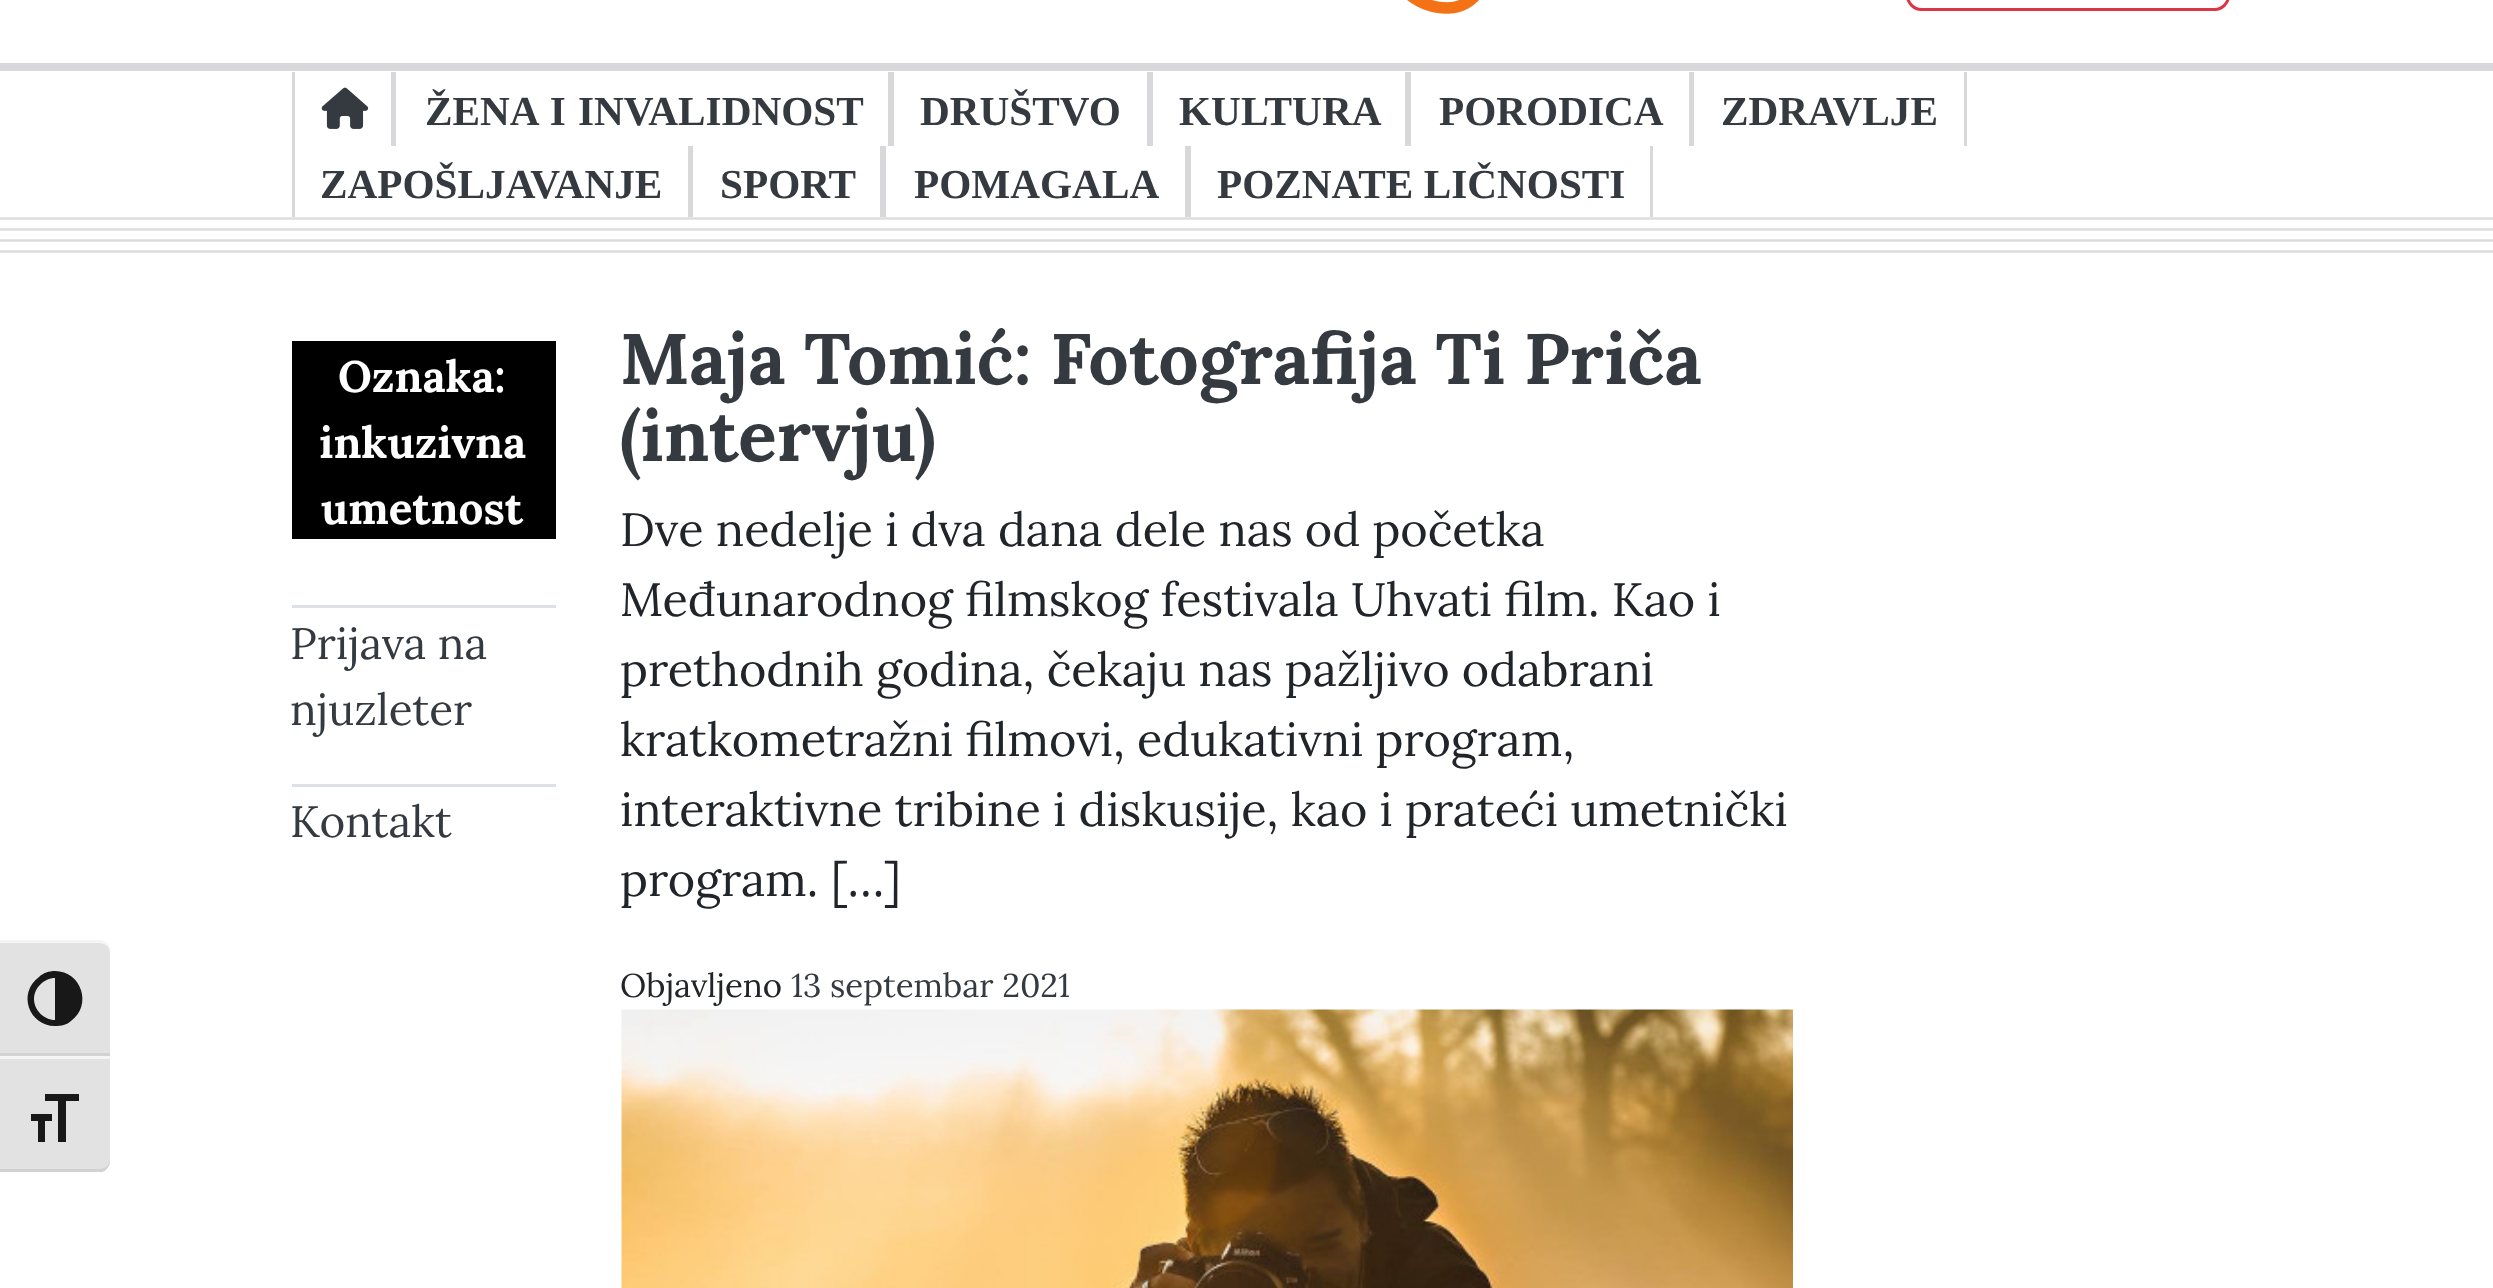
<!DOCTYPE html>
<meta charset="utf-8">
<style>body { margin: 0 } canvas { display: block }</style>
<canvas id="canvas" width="2493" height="1288"></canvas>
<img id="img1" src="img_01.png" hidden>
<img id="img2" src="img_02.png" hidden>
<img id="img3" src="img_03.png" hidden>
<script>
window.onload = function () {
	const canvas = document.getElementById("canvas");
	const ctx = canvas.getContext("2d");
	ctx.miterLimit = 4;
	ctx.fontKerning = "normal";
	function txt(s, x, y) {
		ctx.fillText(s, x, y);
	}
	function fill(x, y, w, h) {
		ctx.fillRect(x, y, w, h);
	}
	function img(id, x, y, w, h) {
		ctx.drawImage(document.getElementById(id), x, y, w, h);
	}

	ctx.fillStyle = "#FFFFFF";
	fill(0, 0, 2493, 1288);
	img("img1", 1407, 0, 72, 14);
	ctx.beginPath();
	ctx.roundRect(1907.5, -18.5, 321, 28, 15.5);
	ctx.strokeStyle = "#DC3545";
	ctx.lineWidth = 3;
	ctx.stroke();
	ctx.fillStyle = "#D8D8DA";
	fill(0, 63, 2493, 8);
	fill(391, 72, 5, 74);
	fill(292, 72, 3, 145);
	img("img2", 321, 87, 48, 42);
	fill(888, 72, 6, 74);
	fill(1147, 72, 6, 74);
	fill(1405, 72, 6, 74);
	fill(1689, 72, 5, 74);
	fill(1964, 72, 3, 74);
	fill(688, 146, 5, 71);
	fill(880, 146, 6, 71);
	fill(1185, 146, 6, 71);
	fill(1650, 146, 3, 71);
	ctx.beginPath();
	ctx.moveTo(0, 218.5);
	ctx.lineTo(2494, 218.5);
	ctx.strokeStyle = "#DCDCDC";
	ctx.lineWidth = 2.3;
	ctx.stroke();
	ctx.beginPath();
	ctx.moveTo(0, 229.5);
	ctx.lineTo(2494, 229.5);
	ctx.stroke();
	ctx.beginPath();
	ctx.moveTo(0, 240.5);
	ctx.lineTo(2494, 240.5);
	ctx.stroke();
	ctx.beginPath();
	ctx.moveTo(0, 251.5);
	ctx.lineTo(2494, 251.5);
	ctx.stroke();
	ctx.fillStyle = "#000000";
	fill(292, 341, 264, 198);
	ctx.fillStyle = "#DEE2E6";
	fill(292, 605, 264, 3);
	fill(292, 784, 264, 3);
	img("img3", 621, 1009, 1172, 279);
	ctx.fillStyle = "#E2E2E2";
	ctx.beginPath();
	ctx.roundRect(0, 941, 110, 115, [0, 11, 0, 0]);
	ctx.fill();
	ctx.fillStyle = "#F5F5F5";
	ctx.beginPath();
	ctx.moveTo(0, 943);
	ctx.lineTo(99, 943);
	ctx.bezierCurveTo(105, 943, 110, 947, 110, 952);
	ctx.bezierCurveTo(110, 946, 107, 942, 102, 940);
	ctx.lineTo(0, 940);
	ctx.closePath();
	ctx.fill();
	ctx.fillStyle = "#D2D2D2";
	fill(0, 1053, 110, 3);
	ctx.fillStyle = "#181818";
	ctx.beginPath();
	ctx.moveTo(55, 971);
	ctx.bezierCurveTo(49, 971, 43, 973, 39, 977);
	ctx.bezierCurveTo(17, 993, 29, 1026, 55, 1026);
	ctx.bezierCurveTo(61, 1026, 67, 1025, 71, 1021);
	ctx.bezierCurveTo(93, 1005, 81, 971, 55, 971);
	ctx.closePath();
	ctx.moveTo(34, 999);
	ctx.bezierCurveTo(34, 988, 44, 978, 55, 978);
	ctx.lineTo(55, 1020);
	ctx.bezierCurveTo(44, 1020, 34, 1010, 34, 999);
	ctx.closePath();
	ctx.fill();
	ctx.fillStyle = "#E2E2E2";
	ctx.beginPath();
	ctx.roundRect(0, 1056, 110, 116, [0, 0, 11, 0]);
	ctx.fill();
	ctx.fillStyle = "#F5F5F5";
	fill(0, 1056, 110, 3);
	ctx.fillStyle = "#D2D2D2";
	ctx.beginPath();
	ctx.moveTo(102, 1172);
	ctx.bezierCurveTo(107, 1170, 110, 1166, 110, 1160);
	ctx.bezierCurveTo(110, 1165, 105, 1169, 99, 1169);
	ctx.lineTo(0, 1169);
	ctx.lineTo(0, 1172);
	ctx.closePath();
	ctx.fill();
	ctx.fillStyle = "#181818";
	ctx.beginPath();
	ctx.moveTo(31, 1114);
	ctx.lineTo(52, 1114);
	ctx.lineTo(52, 1121);
	ctx.lineTo(45, 1121);
	ctx.lineTo(45, 1142);
	ctx.lineTo(38, 1142);
	ctx.lineTo(38, 1121);
	ctx.lineTo(31, 1121);
	ctx.closePath();
	ctx.moveTo(79, 1101);
	ctx.lineTo(66, 1101);
	ctx.lineTo(66, 1142);
	ctx.lineTo(58, 1142);
	ctx.lineTo(58, 1101);
	ctx.lineTo(45, 1101);
	ctx.lineTo(45, 1094);
	ctx.lineTo(79, 1094);
	ctx.closePath();
	ctx.fill();
	ctx.wordSpacing = "2px";
	ctx.font = "bold 41.25px Liberation Serif";
	ctx.fillStyle = "#343A40";
	txt("ŽENA I INVALIDNOST", 425, 125);
	ctx.wordSpacing = "0px";
	txt("DRUŠTVO", 920, 125);
	txt("KULTURA", 1179, 125);
	txt("PORODICA", 1439, 125);
	txt("ZDRAVLJE", 1721, 125);
	txt("ZAPOŠLJAVANJE", 320, 198);
	txt("SPORT", 720, 198);
	txt("POMAGALA", 914, 198);
	txt("POZNATE LIČNOSTI", 1217, 198);
	ctx.font = "bold 44px Lora";
	ctx.fillStyle = "#FFFFFF";
	txt("Oznaka:", 338, 392);
	txt("inkuzivna", 319, 458);
	txt("umetnost", 321, 524);
	ctx.font = "44px Lora";
	ctx.fillStyle = "#343A40";
	txt("Prijava na", 290, 659);
	txt("njuzleter", 290, 725);
	txt("Kontakt", 290, 837);
	ctx.font = "bold 71.5px Lora";
	txt("Maja Tomić: Fotografija Ti Priča", 620, 384);
	txt("(intervju)", 620, 461);
	ctx.font = "46.75px Lora";
	ctx.fillStyle = "#212529";
	txt("Dve nedelje i dva dana dele nas od početka", 620, 546);
	txt("Međunarodnog filmskog festivala Uhvati film. Kao i", 620, 616);
	txt("prethodnih godina, čekaju nas pažljivo odabrani", 620, 686);
	txt("kratkometražni filmovi, edukativni program,", 620, 756);
	txt("interaktivne tribine i diskusije, kao i prateći umetnički", 620, 826);
	txt("program. […]", 620, 896);
	ctx.font = "33px Lora";
	txt("Objavljeno", 620, 997);
	ctx.fillStyle = "#343A40";
	txt("13 septembar 2021", 791, 997);
};
</script>
